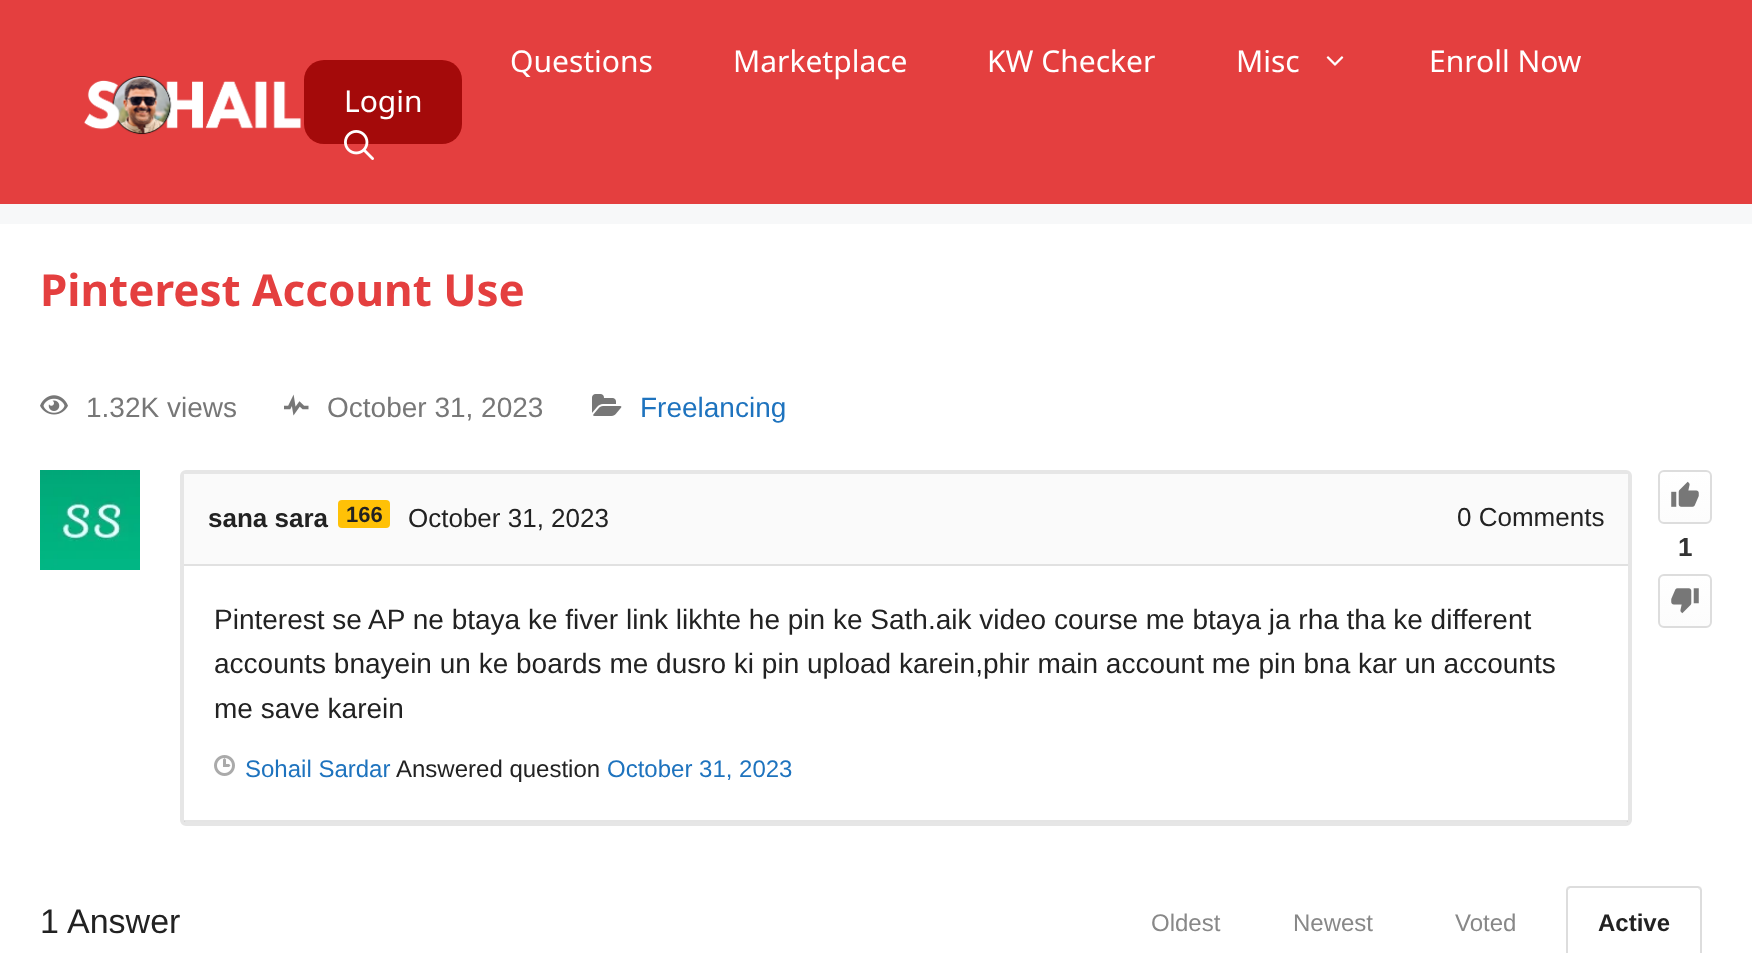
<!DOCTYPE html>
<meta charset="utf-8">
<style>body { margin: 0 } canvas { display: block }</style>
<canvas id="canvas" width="1752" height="953"></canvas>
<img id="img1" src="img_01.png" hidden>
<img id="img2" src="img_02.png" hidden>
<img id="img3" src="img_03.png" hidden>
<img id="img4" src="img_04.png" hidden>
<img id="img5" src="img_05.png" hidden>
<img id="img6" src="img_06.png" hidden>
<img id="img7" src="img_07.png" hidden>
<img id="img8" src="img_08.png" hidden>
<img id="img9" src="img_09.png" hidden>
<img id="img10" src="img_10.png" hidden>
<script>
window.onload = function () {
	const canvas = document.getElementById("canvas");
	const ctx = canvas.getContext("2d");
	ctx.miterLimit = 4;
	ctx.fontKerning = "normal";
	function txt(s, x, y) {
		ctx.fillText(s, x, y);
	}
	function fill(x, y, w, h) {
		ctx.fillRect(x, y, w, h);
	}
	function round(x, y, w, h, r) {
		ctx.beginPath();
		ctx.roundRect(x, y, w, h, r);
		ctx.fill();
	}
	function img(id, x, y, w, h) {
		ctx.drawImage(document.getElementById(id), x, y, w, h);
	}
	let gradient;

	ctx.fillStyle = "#F7F8F9";
	fill(0, 0, 1752, 953);
	ctx.fillStyle = "#E43F3F";
	fill(0, 0, 1752, 204);
	img("img1", 84, 76, 218, 59);
	img("img2", 1326, 56, 18, 10);
	ctx.fillStyle = "#A40A0A";
	round(304, 60, 158, 84, 20);
	img("img3", 344, 130, 30, 30);
	ctx.fillStyle = "#FFFFFF";
	fill(0, 224, 1752, 729);
	img("img4", 40, 395, 28, 20);
	img("img5", 284, 394, 25, 22);
	img("img6", 592, 394, 30, 22);
	img("img7", 40, 470, 100, 100);
	ctx.beginPath();
	ctx.roundRect(182, 472, 1448, 352, 4);
	ctx.strokeStyle = "#E6E6E6";
	ctx.lineWidth = 4;
	ctx.stroke();
	ctx.fillStyle = "#FAFAFA";
	fill(184, 474, 1444, 90);
	ctx.fillStyle = "#E1E1E1";
	fill(184, 564, 1444, 2);
	ctx.fillStyle = "#FFC107";
	round(338, 500, 52, 28, 4);
	img("img8", 214, 755, 21, 21);
	ctx.fillStyle = "rgba(0, 0, 0, 0.1)";
	fill(184, 820, 1444, 2);
	ctx.save();
	ctx.beginPath();
	ctx.roundRect(1658, 470, 54, 54, 6);
	ctx.clip();
	gradient = ctx.createLinearGradient(1685, 472, 1685, 522);
	gradient.addColorStop(0, "#FFFFFF");
	gradient.addColorStop(1, "#FCFCFC");
	ctx.fillStyle = gradient;
	fill(1658, 472, 54, 50);
	ctx.restore();
	ctx.beginPath();
	ctx.roundRect(1659, 471, 52, 52, 5);
	ctx.strokeStyle = "#DDDDDD";
	ctx.lineWidth = 2;
	ctx.stroke();
	img("img9", 1671, 481, 28, 26);
	ctx.save();
	ctx.beginPath();
	ctx.roundRect(1658, 574, 54, 54, 6);
	ctx.clip();
	gradient = ctx.createLinearGradient(1685, 576, 1685, 626);
	gradient.addColorStop(0, "#FFFFFF");
	gradient.addColorStop(1, "#FCFCFC");
	ctx.fillStyle = gradient;
	fill(1658, 576, 54, 50);
	ctx.restore();
	ctx.beginPath();
	ctx.roundRect(1659, 575, 52, 52, 5);
	ctx.stroke();
	img("img10", 1671, 588, 28, 26);
	ctx.fillStyle = "#DDDDDD";
	ctx.beginPath();
	ctx.moveTo(1570, 886);
	ctx.lineTo(1567, 887);
	ctx.lineTo(1569, 889);
	ctx.lineTo(1570, 888);
	ctx.lineTo(1698, 888);
	ctx.lineTo(1699, 889);
	ctx.lineTo(1701, 887);
	ctx.lineTo(1698, 886);
	ctx.closePath();
	ctx.fill();
	ctx.beginPath();
	ctx.moveTo(1702, 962);
	ctx.lineTo(1702, 890);
	ctx.lineTo(1701, 887);
	ctx.lineTo(1699, 889);
	ctx.lineTo(1700, 890);
	ctx.lineTo(1700, 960);
	ctx.closePath();
	ctx.fill();
	ctx.beginPath();
	ctx.moveTo(1566, 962);
	ctx.lineTo(1568, 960);
	ctx.lineTo(1568, 890);
	ctx.lineTo(1569, 889);
	ctx.lineTo(1567, 887);
	ctx.lineTo(1566, 890);
	ctx.closePath();
	ctx.fill();
	ctx.font = "30px Noto Sans";
	ctx.fillStyle = "#FFFFFF";
	txt("Questions", 510, 72);
	txt("Marketplace", 733, 72);
	txt("KW Checker", 987, 72);
	txt("Misc", 1236, 72);
	txt("Enroll Now", 1429, 72);
	txt("Login", 344, 112);
	ctx.font = "bold 44px Noto Sans";
	ctx.fillStyle = "#E43F3F";
	txt("Pinterest Account Use", 40, 306);
	ctx.font = "28px Liberation Sans";
	ctx.fillStyle = "#777777";
	txt("1.32K views", 86, 417);
	txt("October 31, 2023", 327, 417);
	ctx.fillStyle = "#1E73BE";
	txt("Freelancing", 640, 417);
	ctx.font = "bold 26px Liberation Sans";
	ctx.fillStyle = "#222222";
	txt("sana sara", 208, 527);
	ctx.font = "bold 22px Liberation Sans";
	txt("166", 346, 522);
	ctx.font = "26px Liberation Sans";
	txt("October 31, 2023", 408, 527);
	txt("0 Comments", 1457, 526);
	ctx.font = "28px Liberation Sans";
	txt("Pinterest se AP ne btaya ke fiver link likhte he pin ke Sath.aik video course me btaya ja rha tha ke different", 214, 629);
	txt("accounts bnayein un ke boards me dusro ki pin upload karein,phir main account me pin bna kar un accounts", 214, 673);
	txt("me save karein", 214, 718);
	ctx.font = "24px Liberation Sans";
	ctx.fillStyle = "#1E73BE";
	txt("Sohail Sardar", 245, 777);
	ctx.fillStyle = "#222222";
	txt("Answered question", 396, 777);
	ctx.fillStyle = "#1E73BE";
	txt("October 31, 2023", 607, 777);
	ctx.font = "bold 26px Liberation Sans";
	ctx.fillStyle = "#333333";
	txt("1", 1678, 556);
	ctx.font = "34px Liberation Sans";
	ctx.fillStyle = "#222222";
	txt("1", 40, 933);
	txt("Answer", 67, 933);
	ctx.font = "24px Liberation Sans";
	ctx.fillStyle = "#888888";
	txt("Oldest", 1151, 931);
	txt("Newest", 1293, 931);
	txt("Voted", 1455, 931);
	ctx.font = "bold 24px Liberation Sans";
	ctx.fillStyle = "#222222";
	txt("Active", 1598, 931);
};
</script>
